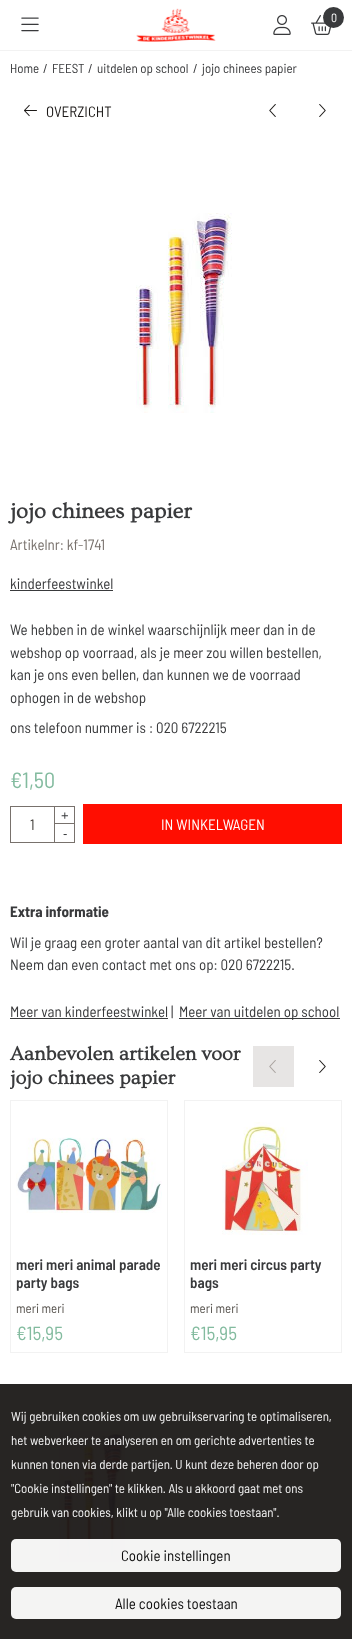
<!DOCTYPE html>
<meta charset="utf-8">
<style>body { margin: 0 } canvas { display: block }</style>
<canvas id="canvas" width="352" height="1639"></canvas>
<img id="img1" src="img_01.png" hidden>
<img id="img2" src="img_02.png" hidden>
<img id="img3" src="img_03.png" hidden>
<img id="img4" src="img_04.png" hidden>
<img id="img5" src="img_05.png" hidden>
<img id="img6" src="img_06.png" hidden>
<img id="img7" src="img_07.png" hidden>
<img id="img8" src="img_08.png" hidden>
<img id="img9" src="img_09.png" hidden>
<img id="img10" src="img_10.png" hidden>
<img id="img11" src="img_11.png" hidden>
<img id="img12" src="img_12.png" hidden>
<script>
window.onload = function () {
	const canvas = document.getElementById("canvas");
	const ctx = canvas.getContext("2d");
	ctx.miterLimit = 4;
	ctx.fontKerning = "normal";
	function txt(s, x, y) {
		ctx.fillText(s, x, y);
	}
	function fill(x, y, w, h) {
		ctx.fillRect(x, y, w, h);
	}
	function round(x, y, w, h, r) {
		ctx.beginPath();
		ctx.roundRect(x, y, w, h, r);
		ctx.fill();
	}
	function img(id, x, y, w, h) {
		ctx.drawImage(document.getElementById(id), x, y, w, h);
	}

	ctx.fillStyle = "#FFFFFF";
	fill(0, 0, 352, 1639);
	ctx.fillStyle = "#272523";
	fill(0, 1384, 352, 255);
	ctx.fillStyle = "#F2F2F2";
	fill(0, 50, 352, 1);
	img("img1", 21, 17, 18, 15);
	img("img2", 136, 8, 80, 34);
	img("img3", 273, 15, 18, 20);
	img("img4", 311, 15, 21, 20);
	ctx.fillStyle = "#393A3C";
	ctx.beginPath();
	ctx.arc(333.5, 17.5, 10.5, 0, Math.PI * 2);
	ctx.fill();
	img("img5", 24, 104, 13, 13);
	img("img6", 269, 104, 7, 13);
	img("img7", 319, 104, 7, 13);
	img("img8", 136, 213, 96, 200);
	fill(10, 590, 103, 1);
	ctx.strokeStyle = "#78716C";
	ctx.strokeRect(10.5, 806.5, 64, 36);
	ctx.fillStyle = "#78716C";
	fill(54, 823, 21, 1);
	fill(54, 806, 1, 36);
	ctx.fillStyle = "#FF0E01";
	fill(83, 804, 259, 40);
	ctx.fillStyle = "#393A3C";
	fill(10, 1018, 158, 1);
	fill(179, 1018, 161, 1);
	ctx.fillStyle = "#E7E5E4";
	fill(253, 1046, 41, 41);
	img("img9", 269, 1060, 7, 13);
	img("img7", 319, 1060, 7, 13);
	ctx.strokeStyle = "#F2F2F2";
	ctx.strokeRect(10.5, 1100.5, 157, 252);
	img("img10", 16, 1137, 146, 76);
	ctx.strokeRect(184.5, 1100.5, 157, 252);
	img("img11", 222, 1122, 86, 113);
	img("img12", 59, 1431, 66, 131);
	ctx.fillStyle = "rgba(255, 255, 255, 0.95)";
	round(11, 1539, 330, 33, 5);
	round(11, 1587, 330, 32, 5);
	ctx.font = "12px Barlow Semi Condensed";
	ctx.fillStyle = "#FFFFFF";
	txt("0", 331, 22);
	ctx.font = "13px Barlow Semi Condensed";
	ctx.fillStyle = "#393A3C";
	txt("Home", 10, 73);
	txt("/", 43, 73);
	txt("FEEST", 52, 73);
	txt("/", 88, 73);
	txt("uitdelen op school", 97, 73);
	txt("/", 193, 73);
	txt("jojo chinees papier", 202, 73);
	ctx.font = "15px Barlow Semi Condensed";
	ctx.fillStyle = "#1C1917";
	txt("OVERZICHT", 46, 117);
	ctx.font = "bold 22px Ovo";
	ctx.fillStyle = "#393A3C";
	txt("jojo chinees papier", 10, 518);
	ctx.font = "15px Barlow Semi Condensed";
	ctx.fillStyle = "#78716C";
	txt("Artikelnr: kf-1741", 10, 550);
	ctx.fillStyle = "#393A3C";
	txt("kinderfeestwinkel", 10, 589);
	txt("We hebben in de winkel waarschijnlijk meer dan in de", 10, 635);
	txt("webshop op voorraad, als je meer zou willen bestellen,", 10, 658);
	txt("kan je ons even bellen, dan kunnen we de voorraad", 10, 680);
	txt("ophogen in de webshop", 10, 703);
	txt("ons telefoon nummer is : 020 6722215", 10, 733);
	ctx.font = "22px Barlow Semi Condensed";
	ctx.fillStyle = "#83BB9F";
	txt("€1,50", 10, 788);
	ctx.font = "15px Barlow Semi Condensed";
	ctx.fillStyle = "#44403C";
	txt("1", 30, 830);
	ctx.font = "13px Liberation Sans";
	ctx.fillStyle = "#393A3C";
	txt("+", 61, 820);
	txt("-", 63, 838);
	ctx.font = "15px Barlow Semi Condensed";
	ctx.fillStyle = "#FFFFFF";
	txt("IN WINKELWAGEN", 161, 830);
	ctx.font = "bold 15px Barlow Semi Condensed";
	ctx.fillStyle = "#393A3C";
	txt("Extra informatie", 10, 917);
	ctx.font = "15px Barlow Semi Condensed";
	txt("Wil je graag een groter aantal van dit artikel bestellen?", 10, 948);
	txt("Neem dan even contact met ons op: 020 6722215.", 10, 970);
	txt("Meer van kinderfeestwinkel |", 10, 1017);
	txt("Meer van uitdelen op school", 179, 1017);
	ctx.font = "bold 20px Ovo";
	txt("Aanbevolen artikelen voor", 10, 1060);
	ctx.save();
	ctx.beginPath();
	ctx.rect(10, 1042, 332, 319);
	ctx.clip();
	txt("jojo chinees papier", 10, 1084);
	ctx.restore();
	ctx.font = "600 15px Barlow Semi Condensed";
	txt("meri meri animal parade", 16, 1270);
	txt("party bags", 16, 1288);
	ctx.font = "13px Barlow Semi Condensed";
	ctx.fillStyle = "#57534E";
	txt("meri meri", 16, 1313);
	ctx.font = "19px Barlow Semi Condensed";
	ctx.fillStyle = "#83BB9F";
	txt("€15,95", 16, 1340);
	ctx.font = "600 15px Barlow Semi Condensed";
	ctx.fillStyle = "#393A3C";
	txt("meri meri circus party", 190, 1270);
	txt("bags", 190, 1288);
	ctx.font = "13px Barlow Semi Condensed";
	ctx.fillStyle = "#57534E";
	txt("meri meri", 190, 1313);
	ctx.font = "19px Barlow Semi Condensed";
	ctx.fillStyle = "#83BB9F";
	txt("€15,95", 190, 1340);
	ctx.font = "13px Barlow Semi Condensed";
	ctx.fillStyle = "#F4F4F4";
	txt("Wij gebruiken cookies om uw gebruikservaring te optimaliseren,", 11, 1421);
	txt("het webverkeer te analyseren en om gerichte advertenties te", 11, 1445);
	txt("kunnen tonen via derde partijen. U kunt deze beheren door op", 11, 1469);
	txt("\"Cookie instellingen\" te klikken. Als u akkoord gaat met ons", 11, 1493);
	txt("gebruik van cookies, klikt u op \"Alle cookies toestaan\".", 11, 1517);
	ctx.font = "15px Barlow Semi Condensed";
	ctx.fillStyle = "#0C0C0C";
	txt("Cookie instellingen", 121, 1561);
	txt("Alle cookies toestaan", 115, 1609);
};
</script>
